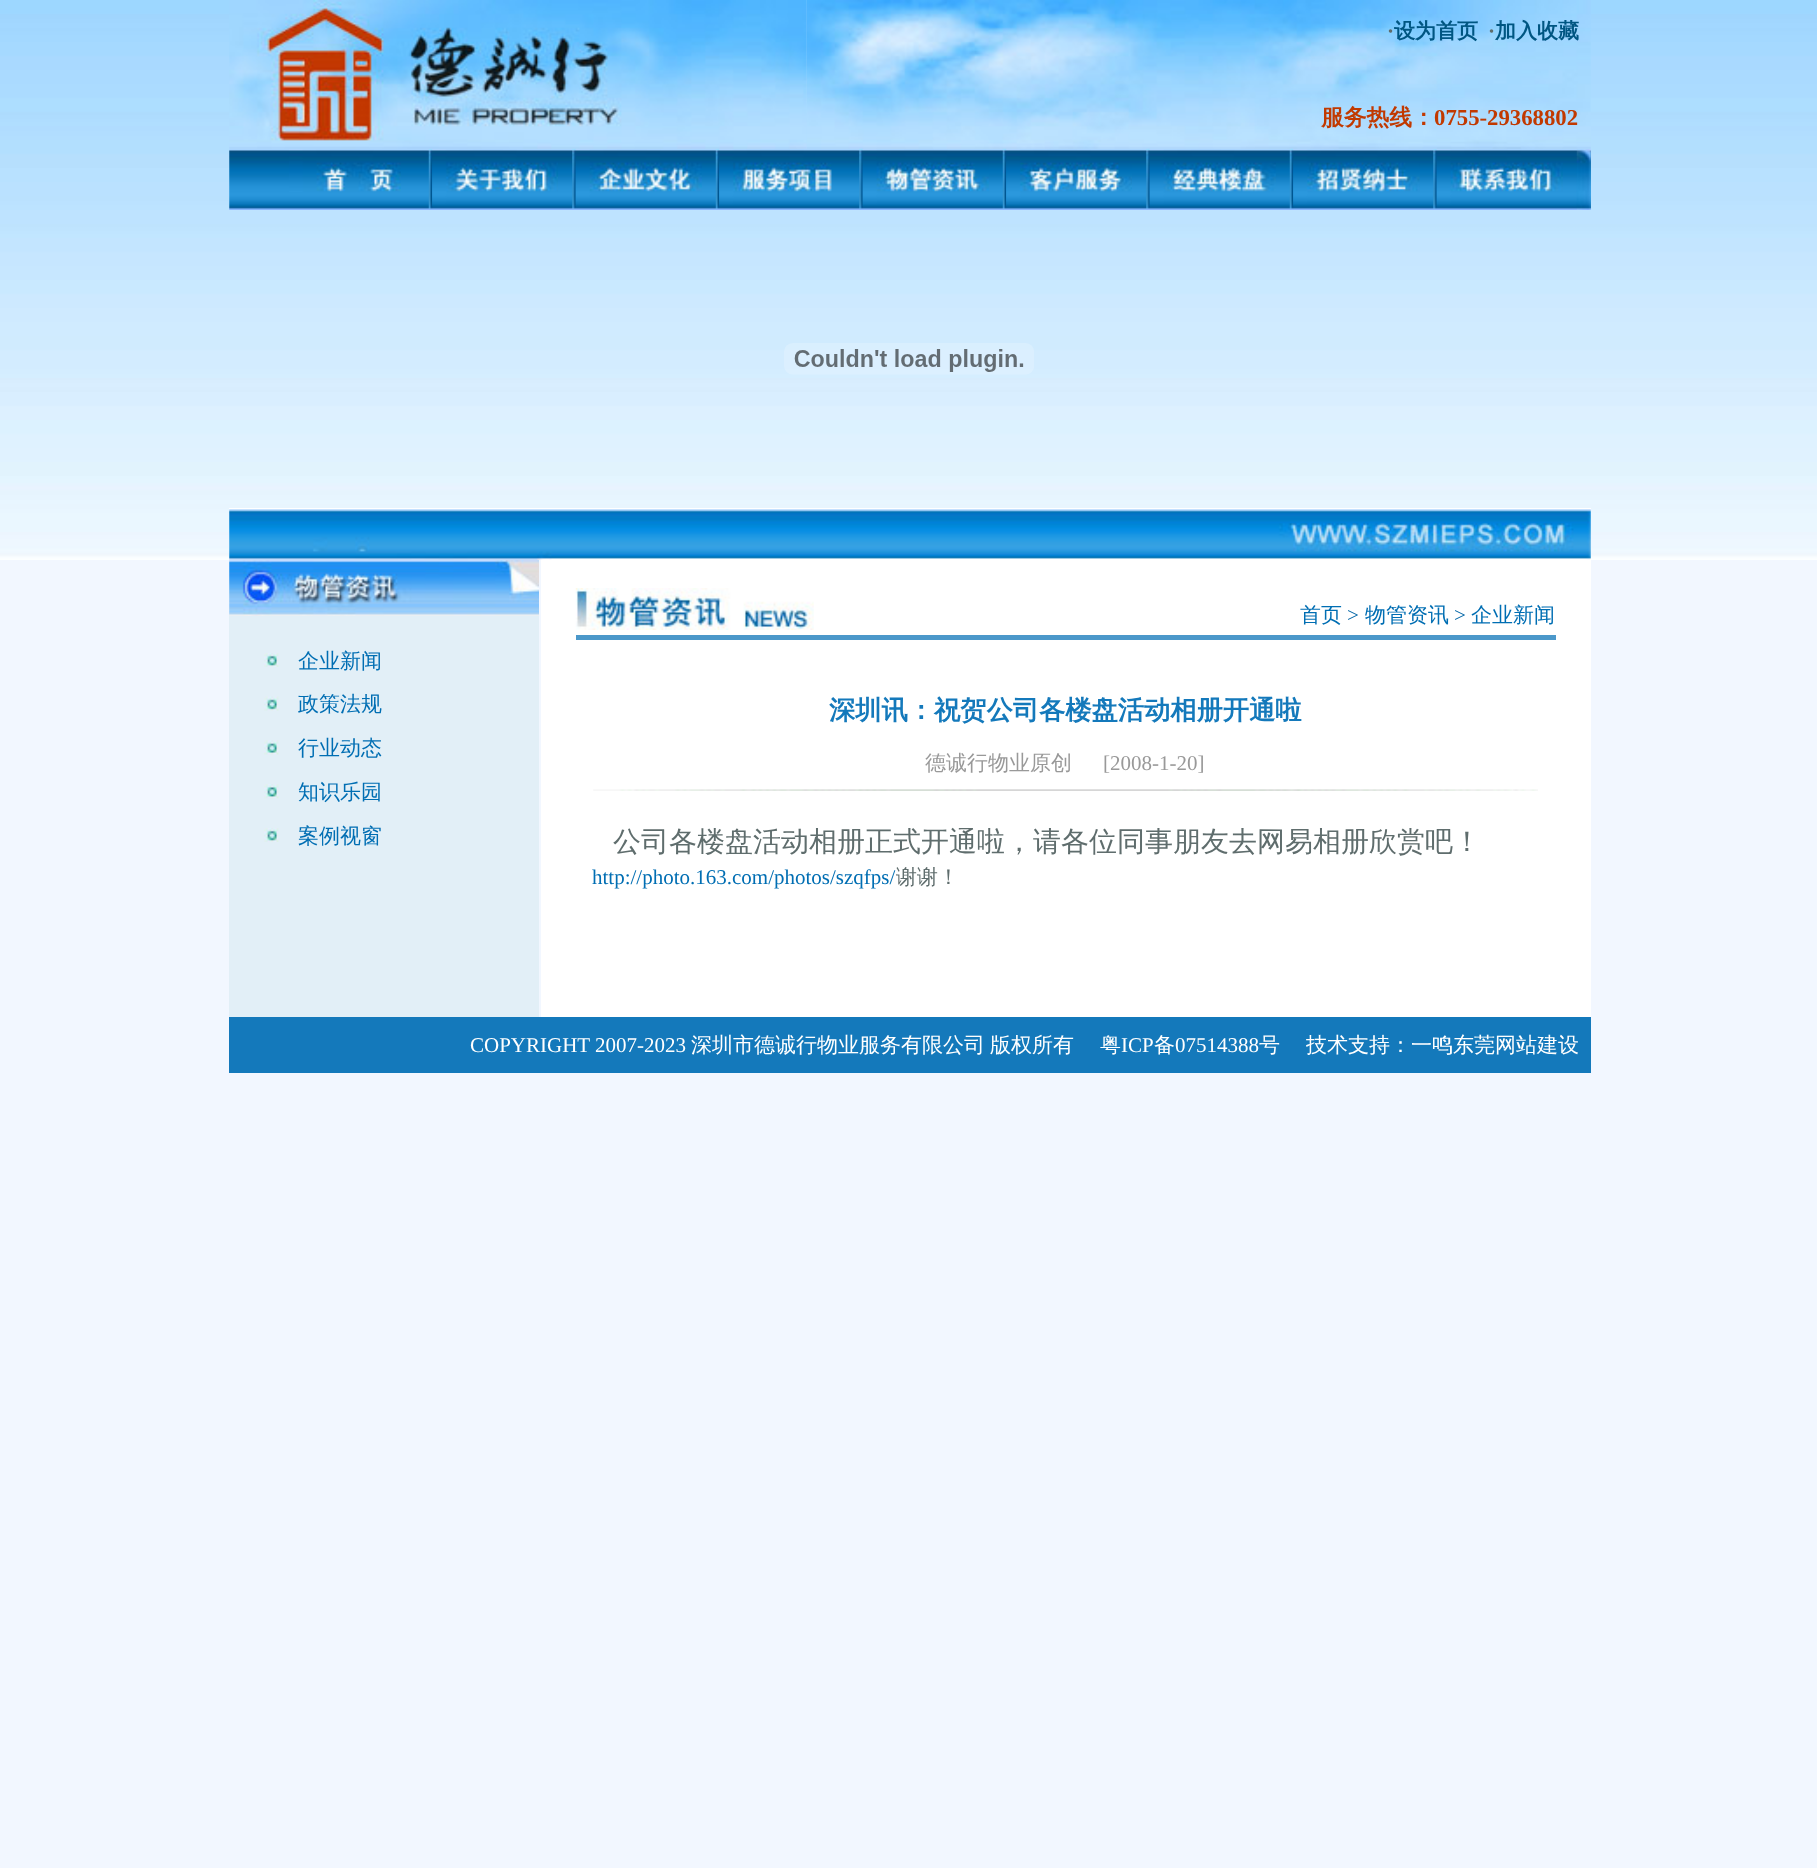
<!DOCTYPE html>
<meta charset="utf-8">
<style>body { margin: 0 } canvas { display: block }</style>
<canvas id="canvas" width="1817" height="1868"></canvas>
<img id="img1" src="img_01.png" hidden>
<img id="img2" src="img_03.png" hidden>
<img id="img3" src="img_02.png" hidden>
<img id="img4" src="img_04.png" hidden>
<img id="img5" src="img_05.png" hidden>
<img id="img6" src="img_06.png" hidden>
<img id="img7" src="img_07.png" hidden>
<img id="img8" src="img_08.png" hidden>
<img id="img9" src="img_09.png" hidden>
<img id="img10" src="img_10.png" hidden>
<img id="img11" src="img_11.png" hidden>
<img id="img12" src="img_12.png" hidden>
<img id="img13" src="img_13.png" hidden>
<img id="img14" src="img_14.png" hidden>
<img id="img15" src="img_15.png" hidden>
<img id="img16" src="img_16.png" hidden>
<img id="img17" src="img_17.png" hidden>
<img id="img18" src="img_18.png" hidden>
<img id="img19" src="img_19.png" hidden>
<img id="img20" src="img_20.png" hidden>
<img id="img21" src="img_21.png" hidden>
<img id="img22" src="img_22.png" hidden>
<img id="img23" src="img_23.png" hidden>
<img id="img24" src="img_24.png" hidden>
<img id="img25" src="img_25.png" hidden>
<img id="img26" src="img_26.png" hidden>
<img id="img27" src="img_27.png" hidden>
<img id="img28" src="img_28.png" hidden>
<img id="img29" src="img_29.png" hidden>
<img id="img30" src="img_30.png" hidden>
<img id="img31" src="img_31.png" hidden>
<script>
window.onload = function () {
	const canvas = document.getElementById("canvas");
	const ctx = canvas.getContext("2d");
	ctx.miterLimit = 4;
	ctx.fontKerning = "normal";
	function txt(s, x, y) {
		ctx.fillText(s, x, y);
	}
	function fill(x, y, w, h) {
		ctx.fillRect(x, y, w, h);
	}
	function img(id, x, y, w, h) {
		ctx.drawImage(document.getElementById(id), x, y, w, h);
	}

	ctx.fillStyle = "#F2F7FF";
	fill(0, 0, 1817, 1868);
	img("img1", 0, 0, 1817, 560);
	img("img2", 806, 0, 785, 149);
	img("img3", 229, 0, 578, 149);
	img("img4", 229, 149, 1362, 61);
	img("img5", 289, 149, 112, 43);
	img("img6", 428, 149, 5, 60);
	img("img7", 432, 149, 126, 57);
	img("img8", 572, 148, 4, 61);
	img("img9", 575, 149, 127, 57);
	img("img10", 715, 148, 5, 61);
	img("img11", 719, 149, 113, 57);
	img("img12", 859, 148, 4, 61);
	img("img13", 862, 149, 127, 57);
	img("img14", 1002, 148, 5, 61);
	img("img15", 1006, 149, 126, 57);
	img("img16", 1146, 148, 4, 61);
	img("img17", 1149, 149, 127, 57);
	img("img18", 1289, 148, 5, 61);
	img("img19", 1293, 149, 127, 57);
	img("img20", 1433, 149, 4, 60);
	img("img21", 1436, 149, 127, 57);
	img("img22", 1576, 149, 15, 61);
	img("img23", 784, 343, 250, 32);
	ctx.fillStyle = "#FFFFFF";
	fill(229, 508, 1362, 2);
	img("img24", 229, 509, 1362, 51);
	ctx.fillStyle = "#E2EFF7";
	fill(229, 560, 310, 457);
	img("img25", 229, 560, 310, 56);
	img("img26", 264, 653, 15, 14);
	img("img27", 264, 696, 15, 15);
	img("img28", 264, 740, 15, 15);
	img("img29", 264, 784, 15, 15);
	img("img26", 264, 828, 15, 14);
	ctx.fillStyle = "#FFFFFF";
	fill(541, 560, 1050, 457);
	img("img30", 575, 588, 239, 42);
	ctx.fillStyle = "#4B98CA";
	fill(576, 635, 980, 5);
	img("img31", 593, 789, 945, 2);
	ctx.fillStyle = "#1479BB";
	fill(229, 1017, 1362, 56);
	ctx.font = "bold 21px Liberation Serif";
	ctx.fillStyle = "#5F6D6D";
	txt("·", 1387, 38);
	ctx.font = "bold 21px WenQuanYi Zen Hei";
	ctx.fillStyle = "#005682";
	txt("设为首页", 1394, 38);
	ctx.font = "bold 21px Liberation Serif";
	ctx.fillStyle = "#5F6D6D";
	txt("·", 1488, 38);
	ctx.font = "bold 21px WenQuanYi Zen Hei";
	ctx.fillStyle = "#005682";
	txt("加入收藏", 1495, 38);
	ctx.font = "bold 22.75px WenQuanYi Zen Hei";
	ctx.fillStyle = "#C13900";
	txt("服务热线：", 1321, 125);
	ctx.font = "bold 22.75px Liberation Serif";
	txt("0755-29368802", 1434, 125);
	ctx.font = "500 21px WenQuanYi Zen Hei";
	ctx.fillStyle = "#006EB3";
	txt("企业新闻", 298, 668);
	txt("政策法规", 298, 711);
	txt("行业动态", 298, 755);
	txt("知识乐园", 298, 799);
	txt("案例视窗", 298, 843);
	txt("首页", 1300, 622);
	ctx.font = "21px Liberation Serif";
	ctx.fillStyle = "#0065A6";
	txt(">", 1347, 622);
	ctx.font = "500 21px WenQuanYi Zen Hei";
	ctx.fillStyle = "#006EB3";
	txt("物管资讯", 1365, 622);
	ctx.font = "21px Liberation Serif";
	ctx.fillStyle = "#0065A6";
	txt(">", 1454, 622);
	ctx.font = "500 21px WenQuanYi Zen Hei";
	ctx.fillStyle = "#006EB3";
	txt("企业新闻", 1471, 622);
	ctx.font = "bold 26.25px WenQuanYi Zen Hei";
	ctx.fillStyle = "#1479BB";
	txt("深圳讯：祝贺公司各楼盘活动相册开通啦", 829, 719);
	ctx.font = "500 21px WenQuanYi Zen Hei";
	ctx.fillStyle = "#999999";
	txt("德诚行物业原创", 925, 770);
	ctx.font = "21px Liberation Serif";
	txt("[2008-1-20]", 1103, 770);
	ctx.font = "500 28px WenQuanYi Zen Hei";
	ctx.fillStyle = "#5F6D6D";
	txt("公司各楼盘活动相册正式开通啦，请各位同事朋友去网易相册欣赏吧！", 613, 851);
	ctx.font = "21px Liberation Serif";
	ctx.fillStyle = "#006EB3";
	txt("http://photo.163.com/photos/szqfps/", 592, 884);
	ctx.font = "500 21px WenQuanYi Zen Hei";
	ctx.fillStyle = "#5F6D6D";
	txt("谢谢！", 896, 884);
	ctx.font = "21px Liberation Serif";
	ctx.fillStyle = "#FFFFFF";
	txt("COPYRIGHT 2007-2023", 470, 1052);
	ctx.font = "500 21px WenQuanYi Zen Hei";
	txt("深圳市德诚行物业服务有限公司", 691, 1052);
	txt("版权所有", 990, 1052);
	txt("粤", 1100, 1052);
	ctx.font = "21px Liberation Serif";
	txt("ICP", 1121, 1052);
	ctx.font = "500 21px WenQuanYi Zen Hei";
	txt("备", 1154, 1052);
	ctx.font = "21px Liberation Serif";
	txt("07514388", 1175, 1052);
	ctx.font = "500 21px WenQuanYi Zen Hei";
	txt("号", 1259, 1052);
	txt("技术支持：一鸣东莞网站建设", 1306, 1052);
};
</script>
